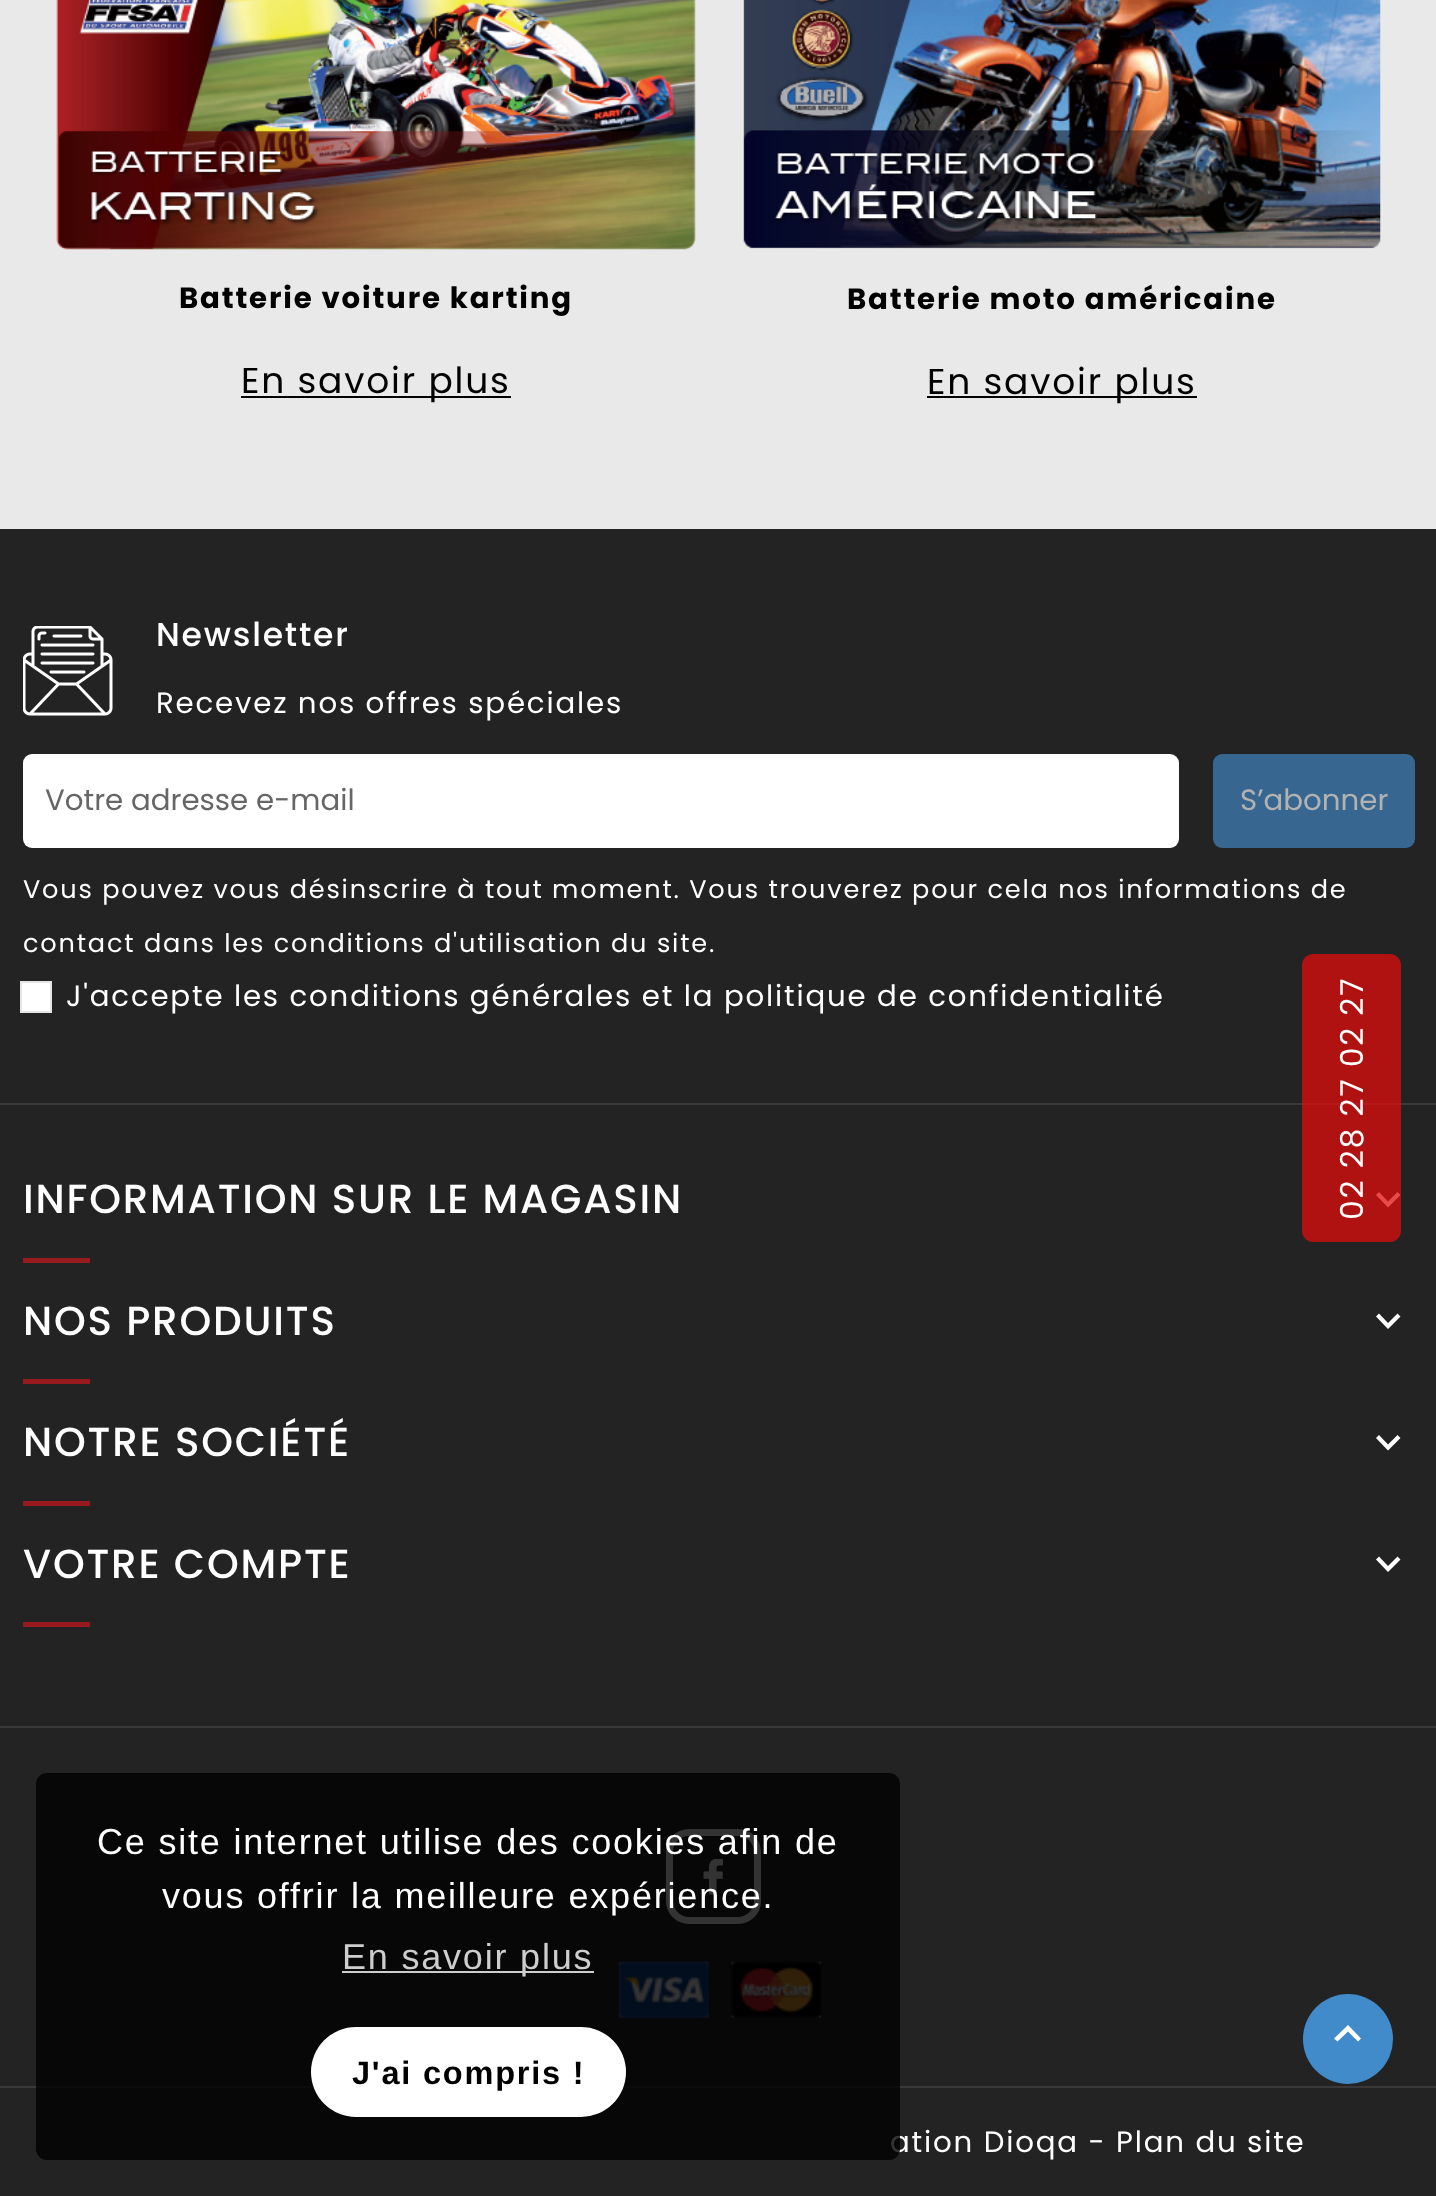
<!DOCTYPE html>
<meta charset="utf-8">
<style>body { margin: 0 } canvas { display: block }</style>
<canvas id="canvas" width="1436" height="2196"></canvas>
<img id="img1" src="img_01.png" hidden>
<img id="img2" src="img_02.png" hidden>
<img id="img3" src="img_03.png" hidden>
<img id="img4" src="img_04.png" hidden>
<img id="img5" src="img_05.png" hidden>
<script>
window.onload = function () {
	const canvas = document.getElementById("canvas");
	const ctx = canvas.getContext("2d");
	ctx.miterLimit = 4;
	ctx.fontKerning = "normal";
	function txt(s, x, y) {
		ctx.fillText(s, x, y);
	}
	function fill(x, y, w, h) {
		ctx.fillRect(x, y, w, h);
	}
	function round(x, y, w, h, r) {
		ctx.beginPath();
		ctx.roundRect(x, y, w, h, r);
		ctx.fill();
	}
	function img(id, x, y, w, h) {
		ctx.drawImage(document.getElementById(id), x, y, w, h);
	}

	ctx.fillStyle = "#EAE9E9";
	fill(0, 0, 1436, 2196);
	img("img1", 56, 0, 640, 250);
	ctx.fillStyle = "#000000";
	fill(241, 396, 270, 2);
	img("img2", 743, 0, 638, 249);
	fill(927, 396, 270, 2);
	ctx.fillStyle = "#232323";
	fill(0, 529, 1436, 1667);
	img("img3", 23, 626, 90, 90);
	ctx.fillStyle = "#FFFFFF";
	round(23, 754, 1156, 94, 9);
	ctx.fillStyle = "#376790";
	round(1213, 754, 202, 94, 9);
	ctx.fillStyle = "#FFFFFF";
	ctx.beginPath();
	ctx.rect(21, 982, 30, 30);
	ctx.fill();
	ctx.strokeStyle = "#E5E5E5";
	ctx.lineWidth = 2;
	ctx.stroke();
	ctx.fillStyle = "#393939";
	fill(0, 1103, 1436, 2);
	ctx.fillStyle = "#FFFFFF";
	ctx.beginPath();
	ctx.moveTo(1379, 1192);
	ctx.lineTo(1388, 1201.5);
	ctx.lineTo(1397.5, 1192);
	ctx.lineTo(1400.5, 1195);
	ctx.lineTo(1388, 1207.5);
	ctx.lineTo(1376, 1195);
	ctx.closePath();
	ctx.fill();
	ctx.fillStyle = "#971B1E";
	fill(23, 1258, 67, 5);
	ctx.fillStyle = "#FFFFFF";
	ctx.beginPath();
	ctx.moveTo(1379, 1313.5);
	ctx.lineTo(1388, 1323);
	ctx.lineTo(1397.5, 1313.5);
	ctx.lineTo(1400.5, 1316.5);
	ctx.lineTo(1388, 1329);
	ctx.lineTo(1376, 1316.5);
	ctx.closePath();
	ctx.fill();
	ctx.fillStyle = "#971B1E";
	fill(23, 1379, 67, 5);
	ctx.fillStyle = "#FFFFFF";
	ctx.beginPath();
	ctx.moveTo(1379, 1435);
	ctx.lineTo(1388, 1444.5);
	ctx.lineTo(1397.5, 1435);
	ctx.lineTo(1400.5, 1438);
	ctx.lineTo(1388, 1450.5);
	ctx.lineTo(1376, 1438);
	ctx.closePath();
	ctx.fill();
	ctx.fillStyle = "#971B1E";
	fill(23, 1501, 67, 5);
	ctx.fillStyle = "#FFFFFF";
	ctx.beginPath();
	ctx.moveTo(1379, 1556.5);
	ctx.lineTo(1388, 1566);
	ctx.lineTo(1397.5, 1556.5);
	ctx.lineTo(1400.5, 1559.5);
	ctx.lineTo(1388, 1572);
	ctx.lineTo(1376, 1559.5);
	ctx.closePath();
	ctx.fill();
	ctx.fillStyle = "#971B1E";
	fill(23, 1622, 67, 5);
	ctx.fillStyle = "#393939";
	fill(0, 1726, 1436, 2);
	ctx.beginPath();
	ctx.roundRect(669.5, 1832.5, 88, 88, 19.5);
	ctx.strokeStyle = "#FFFFFF";
	ctx.lineWidth = 7;
	ctx.stroke();
	img("img4", 703, 1859, 20, 36);
	img("img5", 618, 1961, 204, 57);
	fill(0, 2086, 1436, 2);
	ctx.fillStyle = "rgba(224, 14, 14, 0.75)";
	ctx.beginPath();
	ctx.moveTo(1302, 1231);
	ctx.lineTo(1302, 965);
	ctx.bezierCurveTo(1302, 959, 1307, 954, 1313, 954);
	ctx.lineTo(1390, 954);
	ctx.bezierCurveTo(1396, 954, 1401, 959, 1401, 965);
	ctx.lineTo(1401, 1231);
	ctx.bezierCurveTo(1401, 1237, 1396, 1242, 1390, 1242);
	ctx.lineTo(1313, 1242);
	ctx.bezierCurveTo(1307, 1242, 1302, 1237, 1302, 1231);
	ctx.closePath();
	ctx.fill();
	ctx.fillStyle = "#428BCA";
	ctx.beginPath();
	ctx.arc(1348, 2039, 45, 0, Math.PI * 2);
	ctx.fill();
	ctx.fillStyle = "#FFFFFF";
	ctx.beginPath();
	ctx.moveTo(1337.5, 2041.5);
	ctx.lineTo(1334, 2038.5);
	ctx.lineTo(1348, 2025);
	ctx.lineTo(1361, 2038.5);
	ctx.lineTo(1358, 2041.5);
	ctx.lineTo(1348, 2031.5);
	ctx.closePath();
	ctx.fill();
	ctx.letterSpacing = "1.8px";
	ctx.font = "bold 29.25px Poppins";
	ctx.fillStyle = "#000000";
	txt("Batterie voiture karting", 179, 308);
	ctx.font = "36px Poppins";
	txt("En savoir plus", 241, 393);
	ctx.font = "bold 29.25px Poppins";
	txt("Batterie moto américaine", 847, 309);
	ctx.font = "36px Poppins";
	txt("En savoir plus", 927, 394);
	ctx.font = "500 33px Poppins";
	ctx.fillStyle = "#FFFFFF";
	txt("Newsletter", 156, 646);
	ctx.font = "29.25px Poppins";
	txt("Recevez nos offres spéciales", 156, 713);
	ctx.letterSpacing = "0px";
	ctx.fillStyle = "#666666";
	txt("Votre adresse e-mail", 45, 810);
	ctx.fillStyle = "#B2B2B2";
	txt("S’abonner", 1240, 810);
	ctx.letterSpacing = "1.8px";
	ctx.wordSpacing = "-0.1px";
	ctx.font = "25.6px Poppins";
	ctx.fillStyle = "#FFFFFF";
	txt("Vous pouvez vous désinscrire à tout moment. Vous trouverez pour cela nos informations de", 23, 898);
	ctx.wordSpacing = "0px";
	txt("contact dans les conditions d'utilisation du site.", 23, 952);
	ctx.font = "29.25px Poppins";
	txt("J'accepte les conditions générales et la politique de confidentialité", 66, 1006);
	ctx.font = "500 40.5px Poppins";
	txt("INFORMATION SUR LE MAGASIN", 23, 1213);
	txt("NOS PRODUITS", 23, 1335);
	txt("NOTRE SOCIÉTÉ", 23, 1456);
	txt("VOTRE COMPTE", 23, 1578);
	ctx.font = "29.25px Poppins";
	txt("ation Dioqa - Plan du site", 890, 2152);
	ctx.font = "31.5px Poppins";
	ctx.save();
	ctx.translate(1363, 1220);
	ctx.rotate(-90 * Math.PI / 180);
	ctx.fillText("02 28 27 02 27", 0, 0);
	ctx.restore();
	ctx.fillStyle = "rgba(0, 0, 0, 0.8)";
	round(36, 1773, 864, 387, 11);
	ctx.font = "36px Liberation Sans";
	ctx.fillStyle = "#FFFFFF";
	txt("Ce site internet utilise des cookies afin de", 97, 1854);
	txt("vous offrir la meilleure expérience.", 162, 1908);
	ctx.fillStyle = "#CDCDCD";
	fill(342, 1971, 252, 2);
	txt("En savoir plus", 342, 1969);
	ctx.fillStyle = "#FFFFFF";
	round(311, 2027, 315, 90, 45);
	ctx.font = "bold 32.5px Liberation Sans";
	ctx.fillStyle = "#000000";
	txt("J'ai compris !", 352, 2084);
};
</script>
